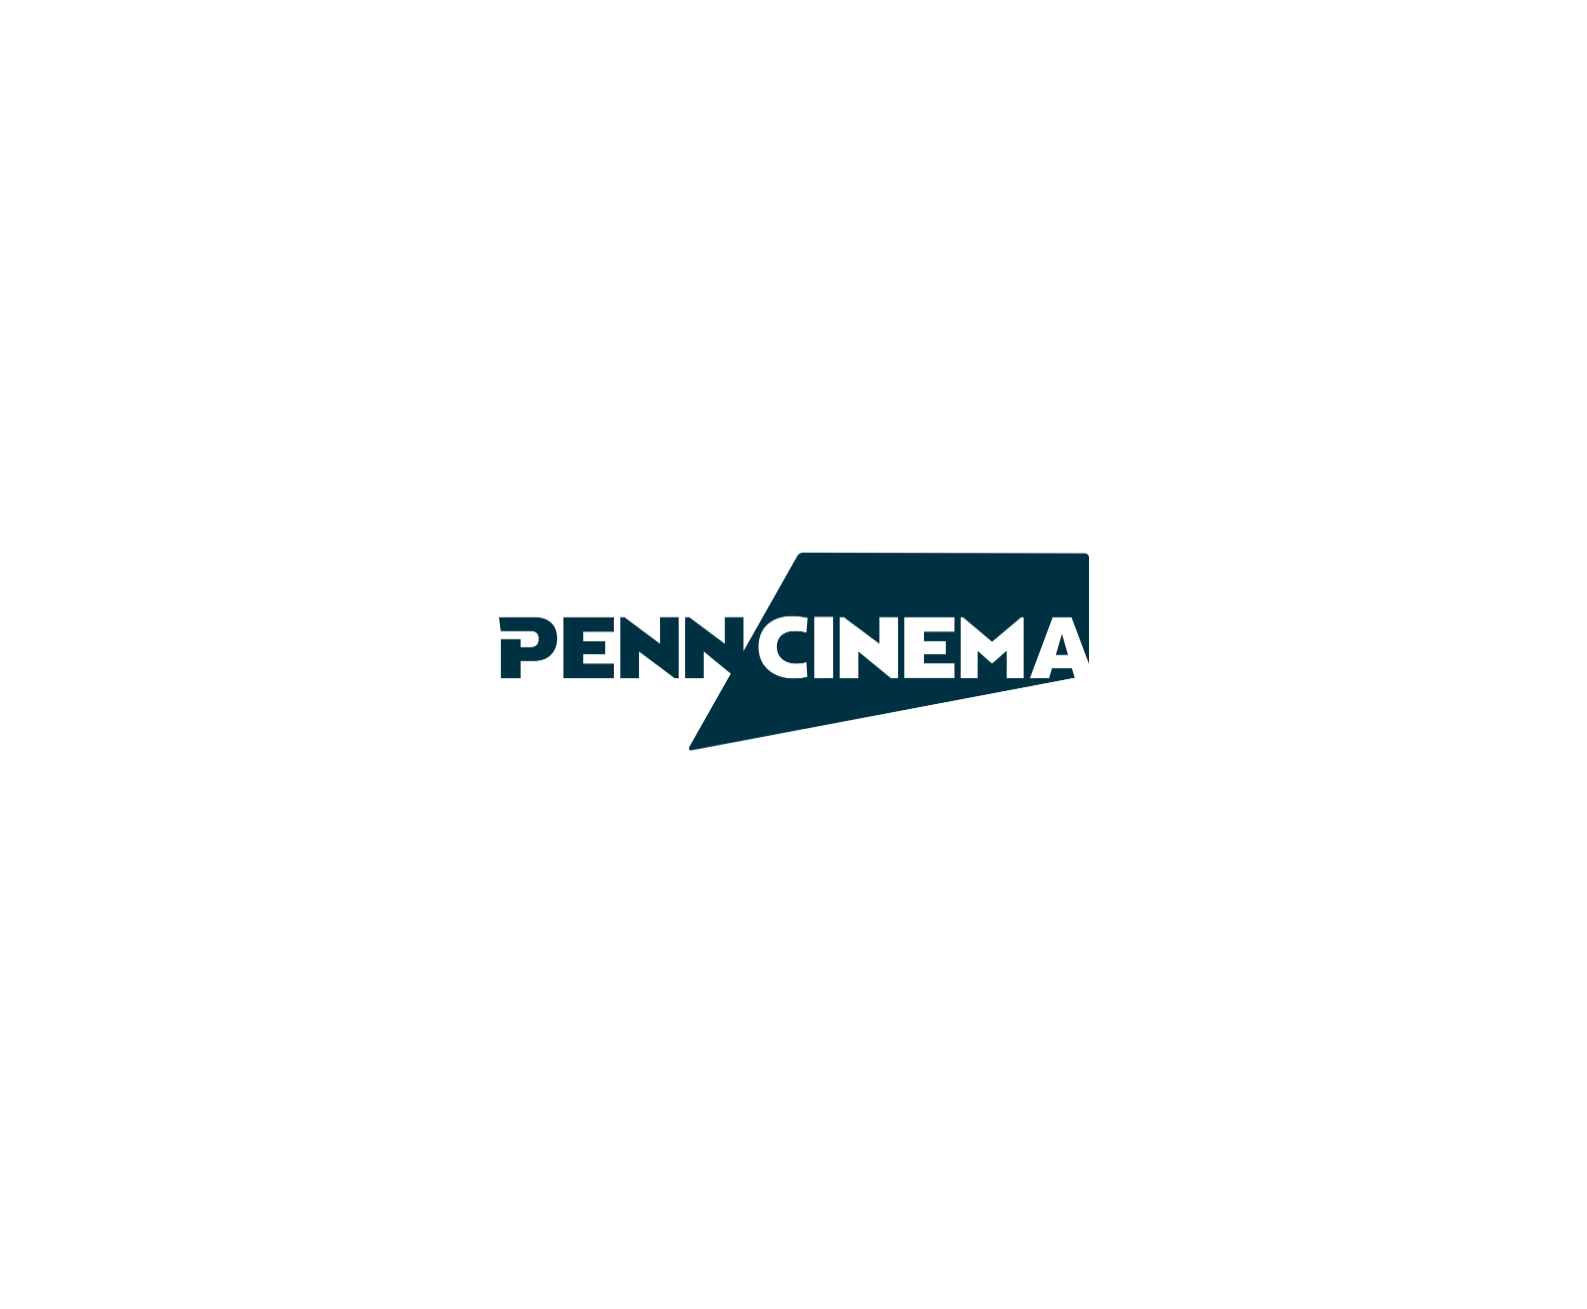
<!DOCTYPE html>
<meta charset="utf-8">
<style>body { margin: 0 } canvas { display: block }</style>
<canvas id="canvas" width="1587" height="1309"></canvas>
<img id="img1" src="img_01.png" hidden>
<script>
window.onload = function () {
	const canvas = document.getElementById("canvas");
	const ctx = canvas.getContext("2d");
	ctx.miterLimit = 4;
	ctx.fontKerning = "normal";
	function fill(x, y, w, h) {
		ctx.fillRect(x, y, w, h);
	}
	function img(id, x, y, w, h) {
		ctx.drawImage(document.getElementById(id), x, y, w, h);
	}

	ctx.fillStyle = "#FFFFFF";
	fill(0, 0, 1587, 1309);
	img("img1", 499, 551, 591, 200);
};
</script>
